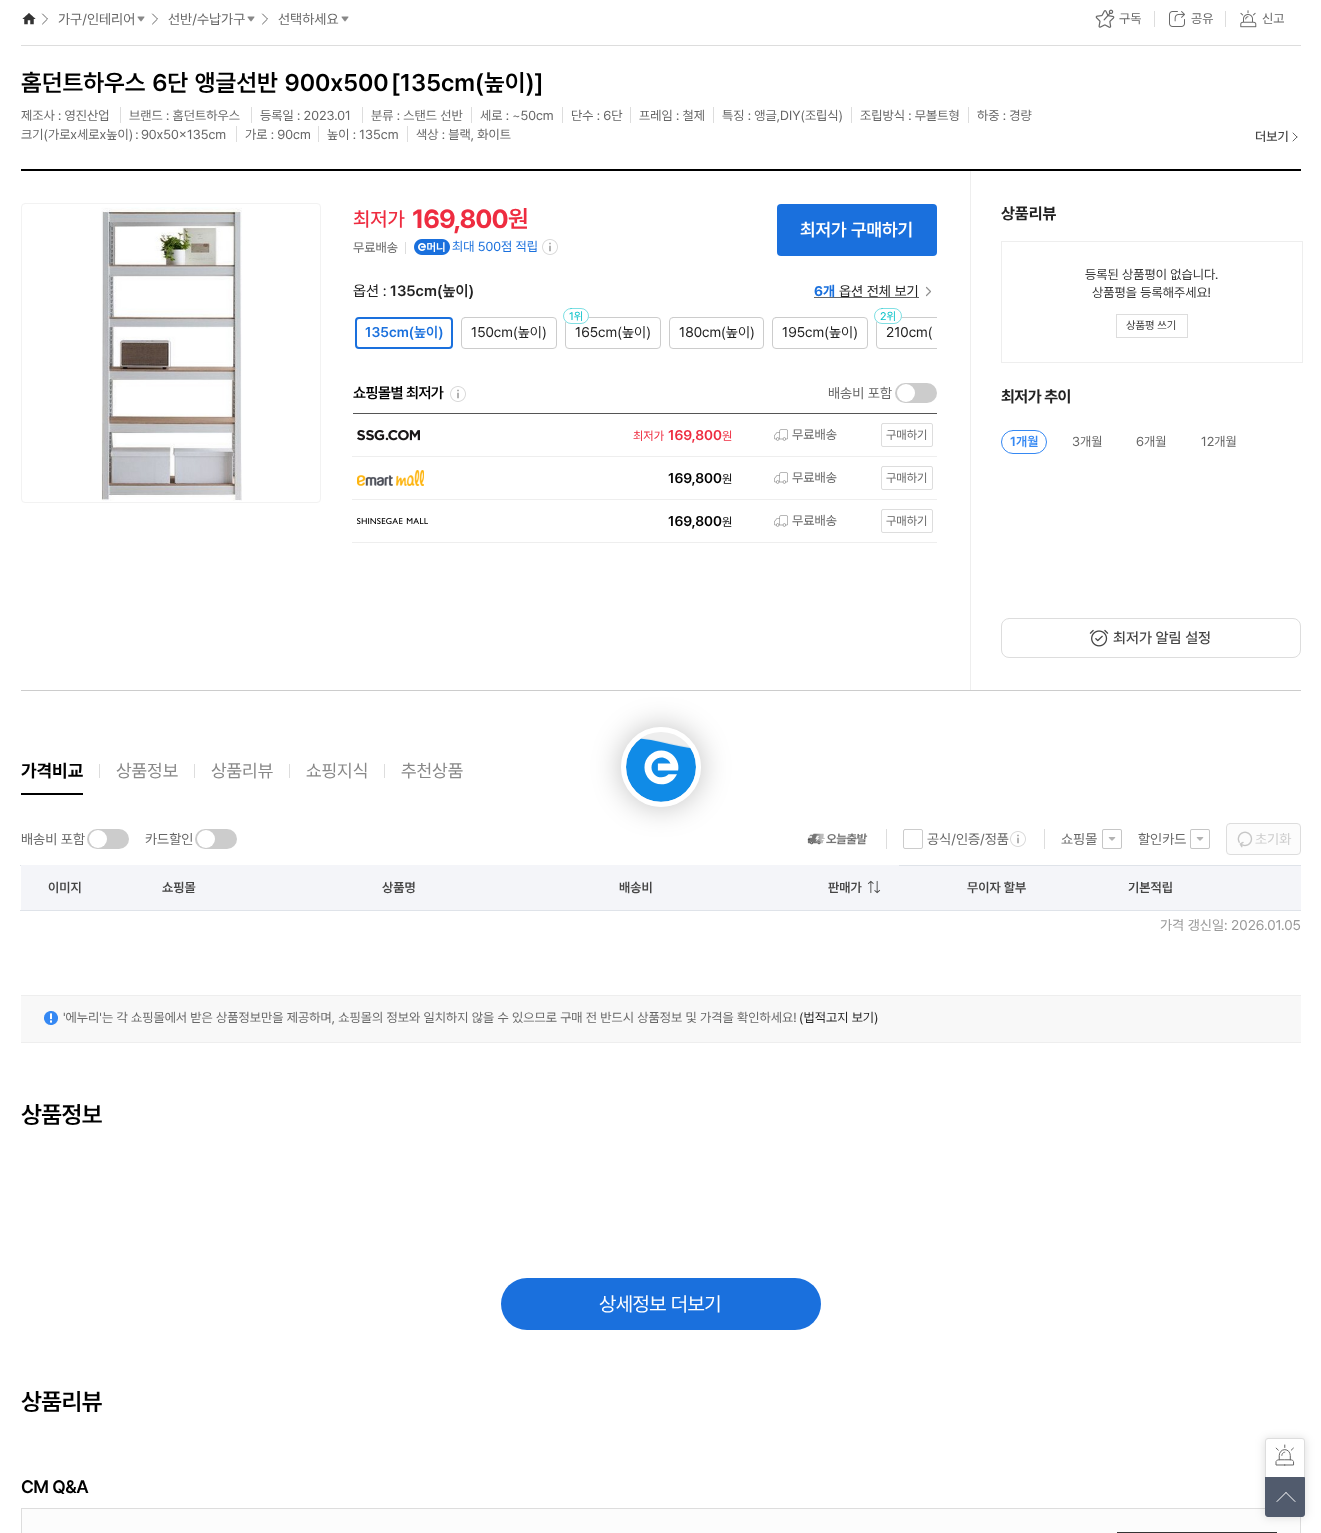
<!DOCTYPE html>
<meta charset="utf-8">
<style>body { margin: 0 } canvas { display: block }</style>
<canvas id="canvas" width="1321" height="1533"></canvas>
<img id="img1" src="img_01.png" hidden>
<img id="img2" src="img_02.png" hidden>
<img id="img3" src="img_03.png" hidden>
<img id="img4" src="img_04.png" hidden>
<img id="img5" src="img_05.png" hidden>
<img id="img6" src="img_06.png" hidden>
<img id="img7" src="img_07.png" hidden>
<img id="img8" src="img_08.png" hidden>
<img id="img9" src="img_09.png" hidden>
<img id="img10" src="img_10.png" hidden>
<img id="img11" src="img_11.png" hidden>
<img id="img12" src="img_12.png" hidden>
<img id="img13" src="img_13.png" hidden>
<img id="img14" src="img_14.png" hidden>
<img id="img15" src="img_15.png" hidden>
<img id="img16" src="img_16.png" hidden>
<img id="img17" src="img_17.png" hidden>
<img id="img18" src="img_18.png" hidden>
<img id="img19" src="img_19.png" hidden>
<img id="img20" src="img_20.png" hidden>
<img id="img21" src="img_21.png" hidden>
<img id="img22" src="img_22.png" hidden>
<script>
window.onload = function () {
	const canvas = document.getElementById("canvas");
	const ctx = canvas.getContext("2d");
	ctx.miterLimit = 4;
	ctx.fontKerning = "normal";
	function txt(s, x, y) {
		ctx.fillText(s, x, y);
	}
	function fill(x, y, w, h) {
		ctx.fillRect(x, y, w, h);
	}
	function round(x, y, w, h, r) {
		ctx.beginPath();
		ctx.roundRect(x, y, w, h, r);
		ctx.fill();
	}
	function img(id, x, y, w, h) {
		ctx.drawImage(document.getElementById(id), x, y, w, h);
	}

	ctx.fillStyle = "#FFFFFF";
	fill(0, 0, 1321, 1533);
	ctx.fillStyle = "#DDDDDD";
	fill(21, 45, 1280, 1);
	img("img1", 22, 13, 14, 12);
	img("img2", 41, 13, 7, 12);
	img("img3", 137, 16, 8, 6);
	img("img2", 151, 13, 7, 12);
	img("img3", 247, 16, 8, 6);
	img("img2", 261, 13, 7, 12);
	img("img3", 341, 16, 8, 6);
	img("img4", 1095, 9, 20, 19);
	fill(1154, 11, 1, 16);
	img("img5", 1169, 11, 16, 16);
	fill(1225, 11, 1, 16);
	img("img6", 1240, 10, 17, 18);
	ctx.fillStyle = "#000000";
	fill(21, 169, 1280, 2);
	ctx.fillStyle = "#DDDDDD";
	fill(120, 107, 1, 16);
	fill(251, 107, 1, 16);
	fill(362, 107, 1, 16);
	fill(471, 107, 1, 16);
	fill(562, 107, 1, 16);
	fill(630, 107, 1, 16);
	fill(713, 107, 1, 16);
	fill(851, 107, 1, 16);
	fill(968, 107, 1, 16);
	fill(236, 126, 1, 16);
	fill(318, 126, 1, 16);
	fill(407, 126, 1, 16);
	ctx.beginPath();
	ctx.moveTo(1293, 141);
	ctx.lineTo(1297, 137);
	ctx.moveTo(1293, 133);
	ctx.lineTo(1297, 137);
	ctx.strokeStyle = "#666666";
	ctx.lineCap = "round";
	ctx.stroke();
	ctx.fillStyle = "#CCCCCC";
	fill(21, 690, 1280, 1);
	img("img7", 101, 207, 141, 294);
	ctx.beginPath();
	ctx.roundRect(21.5, 203.5, 299, 299, 3.5);
	ctx.strokeStyle = "#F2F2F2";
	ctx.stroke();
	ctx.fillStyle = "#DDDDDD";
	fill(405, 242, 1, 12);
	img("img8", 414, 239, 36, 16);
	img("img9", 542, 239, 16, 16);
	ctx.fillStyle = "#1A70DD";
	round(777, 204, 160, 52, 4);
	ctx.fillStyle = "#666666";
	fill(814, 297, 105, 1);
	ctx.beginPath();
	ctx.moveTo(926.5, 287.5);
	ctx.lineTo(930.5, 291.5);
	ctx.lineTo(926.5, 295.5);
	ctx.strokeStyle = "#919191";
	ctx.lineWidth = 1.2;
	ctx.lineJoin = "round";
	ctx.stroke();
	ctx.beginPath();
	ctx.roundRect(356, 318, 96, 30, 3);
	ctx.strokeStyle = "#1A70DD";
	ctx.lineWidth = 2;
	ctx.lineJoin = "miter";
	ctx.stroke();
	ctx.beginPath();
	ctx.roundRect(461.5, 317.5, 95, 31, 3.5);
	ctx.strokeStyle = "#CCCCCC";
	ctx.lineWidth = 1;
	ctx.stroke();
	ctx.beginPath();
	ctx.roundRect(565.5, 317.5, 95, 31, 3.5);
	ctx.stroke();
	ctx.fillStyle = "#FFFFFF";
	round(563, 308, 26, 16, 8);
	ctx.beginPath();
	ctx.roundRect(563.5, 308.5, 25, 15, 7.5);
	ctx.strokeStyle = "rgba(1, 192, 199, 0.5)";
	ctx.stroke();
	ctx.beginPath();
	ctx.roundRect(669.5, 317.5, 94, 31, 3.5);
	ctx.strokeStyle = "#CCCCCC";
	ctx.stroke();
	ctx.beginPath();
	ctx.roundRect(772.5, 317.5, 95, 31, 3.5);
	ctx.stroke();
	ctx.fillStyle = "#EEEEEE";
	fill(970, 171, 1, 519);
	ctx.save();
	ctx.beginPath();
	ctx.rect(353, 301, 584, 48);
	ctx.clip();
	ctx.beginPath();
	ctx.roundRect(876.5, 317.5, 95, 31, 3.5);
	ctx.stroke();
	ctx.restore();
	ctx.fillStyle = "#FFFFFF";
	round(874, 308, 28, 16, 8);
	ctx.beginPath();
	ctx.roundRect(874.5, 308.5, 27, 15, 7.5);
	ctx.strokeStyle = "rgba(1, 192, 199, 0.5)";
	ctx.stroke();
	img("img9", 450, 386, 16, 16);
	ctx.fillStyle = "#CCCCCC";
	round(895, 383, 42, 20, 10);
	ctx.fillStyle = "#FFFFFF";
	ctx.beginPath();
	ctx.arc(906, 393, 9, 0, Math.PI * 2);
	ctx.fill();
	ctx.fillStyle = "#555555";
	fill(353, 413, 584, 1);
	img("img10", 357, 430, 63, 11);
	img("img11", 774, 429, 14, 12);
	ctx.fillStyle = "#EEEEEE";
	fill(352, 456, 585, 1);
	ctx.beginPath();
	ctx.roundRect(881.5, 423.5, 51, 23, 1.5);
	ctx.strokeStyle = "#DDDDDD";
	ctx.stroke();
	img("img12", 357, 470, 67, 16);
	img("img11", 774, 472, 14, 12);
	fill(352, 499, 585, 1);
	ctx.beginPath();
	ctx.roundRect(881.5, 466.5, 51, 23, 1.5);
	ctx.stroke();
	img("img13", 357, 518, 71, 7);
	img("img11", 774, 515, 14, 12);
	fill(352, 542, 585, 1);
	ctx.beginPath();
	ctx.roundRect(881.5, 509.5, 51, 23, 1.5);
	ctx.stroke();
	ctx.strokeStyle = "#EEEEEE";
	ctx.strokeRect(1001.5, 241.5, 301, 121);
	ctx.strokeStyle = "#DDDDDD";
	ctx.strokeRect(1116.5, 314.5, 71, 23);
	ctx.beginPath();
	ctx.roundRect(1001.5, 430.5, 45, 23, 11.5);
	ctx.strokeStyle = "#3588F3";
	ctx.stroke();
	ctx.beginPath();
	ctx.roundRect(1001.5, 618.5, 299, 39, 7.5);
	ctx.strokeStyle = "#DDDDDD";
	ctx.stroke();
	img("img14", 1089, 629, 20, 18);
	ctx.fillStyle = "#000000";
	fill(21, 793, 62, 2);
	ctx.fillStyle = "#DDDDDD";
	fill(99, 764, 1, 14);
	fill(194, 764, 1, 14);
	fill(289, 764, 1, 14);
	fill(384, 764, 1, 14);
	ctx.fillStyle = "#CCCCCC";
	round(87, 829, 42, 20, 10);
	ctx.fillStyle = "#FFFFFF";
	ctx.beginPath();
	ctx.arc(98, 839, 9, 0, Math.PI * 2);
	ctx.fill();
	ctx.fillStyle = "#CCCCCC";
	round(195, 829, 42, 20, 10);
	ctx.fillStyle = "#FFFFFF";
	ctx.beginPath();
	ctx.arc(206, 839, 9, 0, Math.PI * 2);
	ctx.fill();
	ctx.fillStyle = "#DDDDDD";
	fill(886, 829, 1, 20);
	img("img15", 807, 833, 61, 12);
	fill(1044, 829, 1, 20);
	ctx.beginPath();
	ctx.roundRect(903.5, 829.5, 19, 19, 1.5);
	ctx.strokeStyle = "#CCCCCC";
	ctx.stroke();
	img("img9", 1010, 831, 16, 16);
	img("img16", 1102, 829, 20, 20);
	img("img16", 1190, 829, 20, 20);
	ctx.fillStyle = "#FCFCFC";
	ctx.beginPath();
	ctx.roundRect(1226.5, 823.5, 74, 31, 3.5);
	ctx.fill();
	ctx.strokeStyle = "#DDDDDD";
	ctx.stroke();
	img("img17", 1237, 831, 16, 17);
	ctx.fillStyle = "#DFE3E9";
	fill(20, 865, 1, 1);
	ctx.fillStyle = "#F4F5F9";
	fill(21, 865, 877, 45);
	ctx.fillStyle = "#DFE3E9";
	fill(898, 865, 403, 1);
	fill(898, 910, 403, 1);
	ctx.fillStyle = "#F4F5F9";
	fill(898, 865, 1, 46);
	ctx.fillStyle = "#DFE3E9";
	fill(20, 910, 879, 1);
	img("img18", 867, 880, 14, 14);
	ctx.fillStyle = "#F4F5F9";
	fill(899, 866, 402, 44);
	ctx.fillStyle = "#F8F8F8";
	fill(21, 996, 1280, 46);
	ctx.fillStyle = "#EEEEEE";
	fill(21, 995, 1280, 1);
	fill(21, 1042, 1280, 1);
	img("img19", 44, 1011, 14, 14);
	ctx.fillStyle = "#1A70DD";
	round(501, 1278, 320, 52, 26);
	ctx.fillStyle = "#FCFCFC";
	fill(22, 1509, 1278, 24);
	ctx.fillStyle = "#333333";
	fill(1117, 1532, 160, 1);
	ctx.strokeRect(21.5, 1508.5, 1279, 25);
	ctx.fillStyle = "rgba(0, 0, 0, 0.15)";
	ctx.filter = "blur(5px)";
	ctx.beginPath();
	ctx.rect(1265, 1439, 40, 78);
	ctx.fill();
	ctx.filter = "none";
	ctx.fillStyle = "#FFFFFF";
	ctx.beginPath();
	ctx.roundRect(1265.5, 1438.5, 39, 39, [2.5, 2.5, 0, 0]);
	ctx.fill();
	ctx.stroke();
	img("img20", 1275, 1444, 20, 22);
	ctx.fillStyle = "#515B6D";
	ctx.beginPath();
	ctx.roundRect(1265.5, 1477.5, 39, 39, [0, 0, 2.5, 2.5]);
	ctx.fill();
	ctx.strokeStyle = "#515B6D";
	ctx.stroke();
	img("img21", 1276, 1492, 20, 10);
	ctx.fillStyle = "rgba(0, 0, 0, 0.25)";
	ctx.filter = "blur(15px)";
	ctx.beginPath();
	ctx.roundRect(621, 727, 80, 80, 40);
	ctx.fill();
	ctx.filter = "none";
	ctx.fillStyle = "#EEEEEE";
	ctx.beginPath();
	ctx.arc(661, 767, 40, 0, Math.PI * 2);
	ctx.fill();
	img("img22", 626, 738, 70, 64);
	ctx.beginPath();
	ctx.arc(661, 767, 37.5, 0, Math.PI * 2);
	ctx.strokeStyle = "#FFFFFF";
	ctx.lineWidth = 5;
	ctx.stroke();
	ctx.font = "14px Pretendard";
	ctx.fillStyle = "#666666";
	txt("가구/인테리어", 58, 24);
	txt("선반/수납가구", 168, 24);
	txt("선택하세요", 278, 24);
	ctx.font = "13px Pretendard";
	txt("구독", 1119, 23);
	txt("공유", 1191, 23);
	txt("신고", 1262, 23);
	ctx.wordSpacing = "1px";
	ctx.font = "600 24px Pretendard";
	ctx.fillStyle = "#000000";
	txt("홈던트하우스 6단 앵글선반 900x500", 21, 91);
	ctx.wordSpacing = "0px";
	txt("[135cm(높이)]", 391, 91);
	ctx.font = "13px Pretendard";
	ctx.fillStyle = "#666666";
	txt("제조사 : 영진산업", 21, 120);
	txt("브랜드 : 홈던트하우스", 129, 120);
	txt("등록일 : 2023.01", 260, 120);
	txt("분류 : 스탠드 선반", 371, 120);
	txt("세로 : ~50cm", 480, 120);
	txt("단수 : 6단", 571, 120);
	txt("프레임 : 철제", 639, 120);
	txt("특징 : 앵글,DIY(조립식)", 722, 120);
	txt("조립방식 : 무볼트형", 860, 120);
	txt("하중 : 경량", 977, 120);
	ctx.wordSpacing = "-1px";
	txt("크기(가로x세로x높이) : 90x50x135cm", 21, 139);
	ctx.wordSpacing = "0px";
	txt("가로 : 90cm", 245, 139);
	txt("높이 : 135cm", 327, 139);
	txt("색상 : 블랙, 화이트", 416, 139);
	ctx.font = "500 13px Pretendard";
	ctx.fillStyle = "#444444";
	txt("더보기", 1255, 141);
	ctx.font = "500 20px Pretendard";
	ctx.fillStyle = "#EE2C40";
	txt("최저가", 353, 226);
	ctx.letterSpacing = "-1px";
	ctx.font = "bold 26px Pretendard";
	txt("169,800", 412, 228);
	ctx.letterSpacing = "0px";
	ctx.font = "600 24px Pretendard";
	txt("원", 508, 227);
	ctx.font = "13px Pretendard";
	ctx.fillStyle = "#666666";
	txt("무료배송", 353, 252);
	ctx.fillStyle = "#1A70DD";
	txt("최대 500점 적립", 452, 251);
	ctx.font = "600 18px Pretendard";
	ctx.fillStyle = "#FFFFFF";
	txt("최저가 구매하기", 800, 236);
	ctx.font = "15px Pretendard";
	ctx.fillStyle = "#222222";
	txt("옵션 :", 353, 296);
	ctx.font = "600 15px Pretendard";
	txt("135cm(높이)", 390, 296);
	ctx.font = "bold 14px Pretendard";
	ctx.fillStyle = "#1A70DD";
	txt("6개", 814, 296);
	ctx.font = "14px Pretendard";
	ctx.fillStyle = "#222222";
	txt("옵션 전체 보기", 839, 296);
	ctx.font = "600 14px Pretendard";
	ctx.fillStyle = "#1A70DD";
	txt("135cm(높이)", 365, 337);
	ctx.font = "14px Pretendard";
	ctx.fillStyle = "#222222";
	txt("150cm(높이)", 471, 337);
	ctx.font = "11px Pretendard";
	ctx.fillStyle = "#01C0C7";
	txt("1위", 569, 320);
	ctx.font = "14px Pretendard";
	ctx.fillStyle = "#222222";
	txt("165cm(높이)", 575, 337);
	txt("180cm(높이)", 679, 337);
	txt("195cm(높이)", 782, 337);
	ctx.font = "11px Pretendard";
	ctx.fillStyle = "#01C0C7";
	txt("2위", 880, 320);
	ctx.font = "14px Pretendard";
	ctx.fillStyle = "#222222";
	txt("210cm(", 886, 337);
	ctx.letterSpacing = "-0.5px";
	ctx.font = "600 15px Pretendard";
	ctx.fillStyle = "#000000";
	txt("쇼핑몰별 최저가", 353, 398);
	ctx.letterSpacing = "0px";
	ctx.font = "14px Pretendard";
	ctx.fillStyle = "#666666";
	txt("배송비 포함", 828, 398);
	ctx.font = "12px Pretendard";
	ctx.fillStyle = "#EE2C40";
	txt("최저가", 633, 440);
	ctx.font = "600 14px Pretendard";
	txt("169,800", 668, 440);
	ctx.font = "12px Pretendard";
	txt("원", 722, 440);
	ctx.font = "13px Pretendard";
	ctx.fillStyle = "#666666";
	txt("무료배송", 792, 439);
	ctx.font = "12px Pretendard";
	txt("구매하기", 886, 439);
	ctx.font = "600 14px Pretendard";
	ctx.fillStyle = "#000000";
	txt("169,800", 668, 483);
	ctx.font = "12px Pretendard";
	txt("원", 722, 483);
	ctx.font = "13px Pretendard";
	ctx.fillStyle = "#666666";
	txt("무료배송", 792, 482);
	ctx.font = "12px Pretendard";
	txt("구매하기", 886, 482);
	ctx.font = "600 14px Pretendard";
	ctx.fillStyle = "#000000";
	txt("169,800", 668, 526);
	ctx.font = "12px Pretendard";
	txt("원", 722, 526);
	ctx.font = "13px Pretendard";
	ctx.fillStyle = "#666666";
	txt("무료배송", 792, 525);
	ctx.font = "12px Pretendard";
	txt("구매하기", 886, 525);
	ctx.font = "bold 16px Pretendard";
	ctx.fillStyle = "#222222";
	txt("상품리뷰", 1001, 219);
	ctx.font = "13px Pretendard";
	ctx.fillStyle = "#333333";
	txt("등록된 상품평이 없습니다.", 1085, 279);
	txt("상품평을 등록해주세요!", 1092, 297);
	ctx.font = "11px Pretendard";
	txt("상품평 쓰기", 1126, 329);
	ctx.letterSpacing = "-0.5px";
	ctx.font = "bold 16px Pretendard";
	ctx.fillStyle = "#222222";
	txt("최저가 추이", 1001, 402);
	ctx.letterSpacing = "0px";
	ctx.font = "600 13px Pretendard";
	ctx.fillStyle = "#3588F3";
	txt("1개월", 1010, 446);
	ctx.font = "13px Pretendard";
	ctx.fillStyle = "#666666";
	txt("3개월", 1072, 446);
	txt("6개월", 1136, 446);
	txt("12개월", 1201, 446);
	ctx.font = "500 15px Pretendard";
	ctx.fillStyle = "#444444";
	txt("최저가 알림 설정", 1113, 643);
	ctx.font = "bold 18px Pretendard";
	ctx.fillStyle = "#000000";
	txt("가격비교", 21, 777);
	ctx.font = "18px Pretendard";
	ctx.fillStyle = "#888888";
	txt("상품정보", 116, 777);
	txt("상품리뷰", 211, 777);
	txt("쇼핑지식", 306, 777);
	txt("추천상품", 401, 777);
	ctx.font = "14px Pretendard";
	ctx.fillStyle = "#666666";
	txt("배송비 포함", 21, 844);
	txt("카드할인", 145, 844);
	txt("공식/인증/정품", 927, 844);
	txt("쇼핑몰", 1061, 844);
	txt("할인카드", 1138, 844);
	ctx.fillStyle = "#CCCCCC";
	txt("초기화", 1255, 844);
	ctx.font = "600 13px Pretendard";
	ctx.fillStyle = "#444444";
	txt("이미지", 48, 892);
	txt("쇼핑몰", 162, 892);
	txt("상품명", 382, 892);
	txt("배송비", 619, 892);
	txt("판매가", 828, 892);
	txt("무이자 할부", 967, 892);
	txt("기본적립", 1128, 892);
	ctx.font = "14px Pretendard";
	ctx.fillStyle = "#999999";
	txt("가격 갱신일: 2026.01.05", 1160, 930);
	ctx.font = "13px Pretendard";
	ctx.fillStyle = "#666666";
	txt("'에누리'는 각 쇼핑몰에서 받은 상품정보만을 제공하며, 쇼핑몰의 정보와 일치하지 않을 수 있으므로 구매 전 반드시 상품정보 및 가격을 확인하세요!", 63, 1022);
	ctx.fillStyle = "#222222";
	txt("(법적고지 보기)", 799, 1022);
	ctx.letterSpacing = "-0.5px";
	ctx.font = "600 24px Pretendard";
	ctx.fillStyle = "#000000";
	txt("상품정보", 21, 1123);
	ctx.font = "20px Pretendard";
	ctx.fillStyle = "#FFFFFF";
	txt("상세정보 더보기", 599, 1311);
	ctx.font = "600 24px Pretendard";
	ctx.fillStyle = "#000000";
	txt("상품리뷰", 21, 1410);
	ctx.font = "600 18px Pretendard";
	txt("CM Q&A", 21, 1493);
};
</script>
